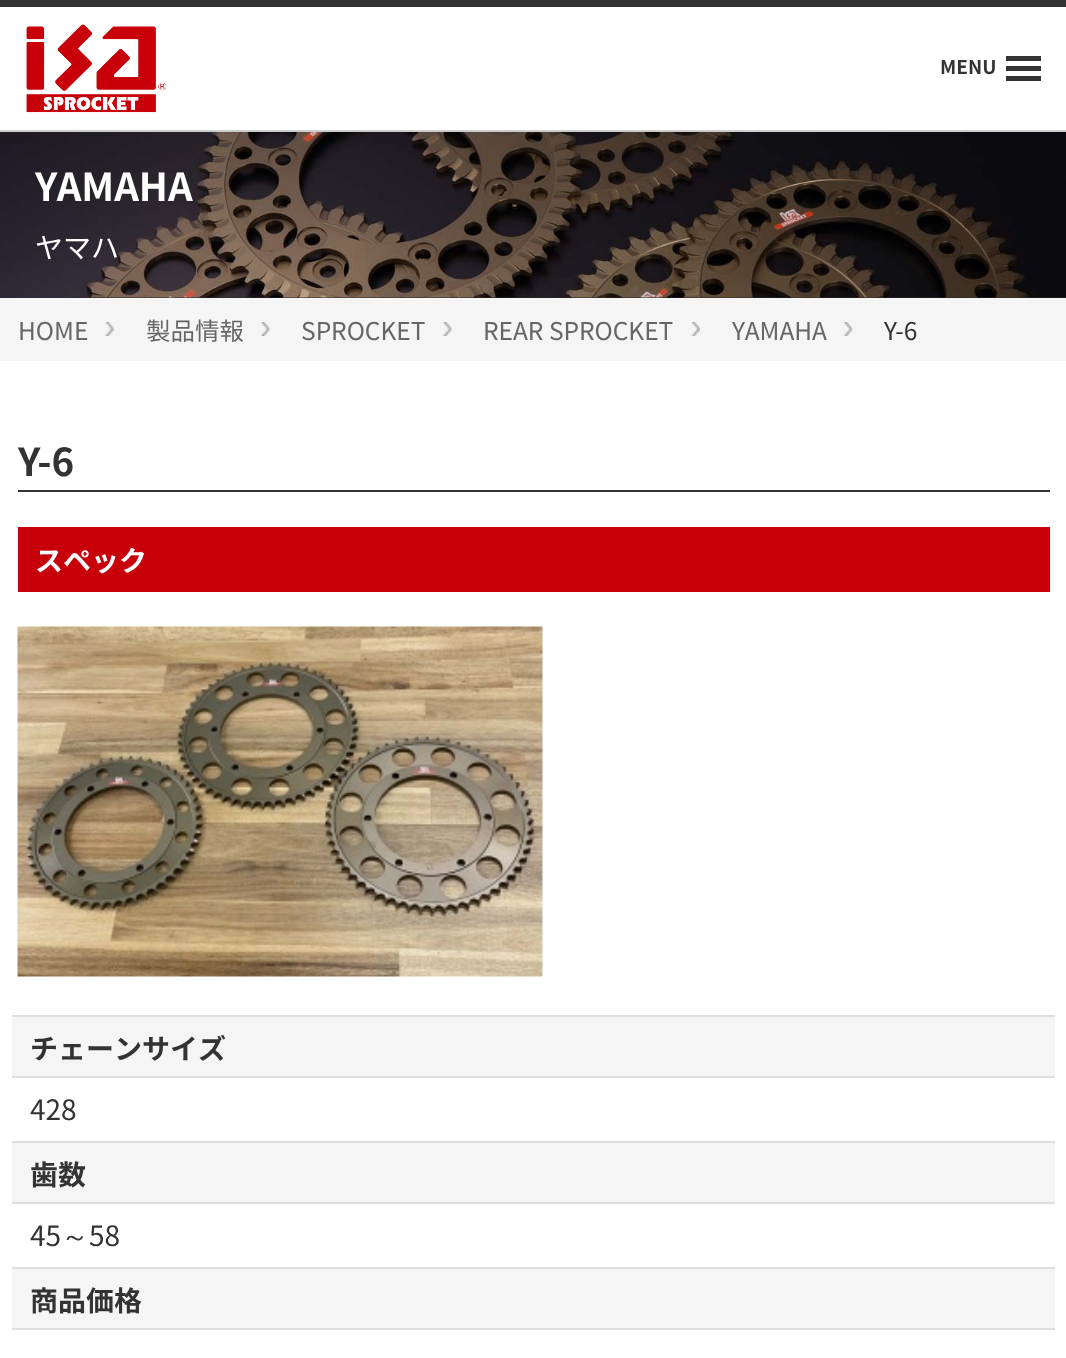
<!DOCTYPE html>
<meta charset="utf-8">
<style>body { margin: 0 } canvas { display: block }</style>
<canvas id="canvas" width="1066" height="1358"></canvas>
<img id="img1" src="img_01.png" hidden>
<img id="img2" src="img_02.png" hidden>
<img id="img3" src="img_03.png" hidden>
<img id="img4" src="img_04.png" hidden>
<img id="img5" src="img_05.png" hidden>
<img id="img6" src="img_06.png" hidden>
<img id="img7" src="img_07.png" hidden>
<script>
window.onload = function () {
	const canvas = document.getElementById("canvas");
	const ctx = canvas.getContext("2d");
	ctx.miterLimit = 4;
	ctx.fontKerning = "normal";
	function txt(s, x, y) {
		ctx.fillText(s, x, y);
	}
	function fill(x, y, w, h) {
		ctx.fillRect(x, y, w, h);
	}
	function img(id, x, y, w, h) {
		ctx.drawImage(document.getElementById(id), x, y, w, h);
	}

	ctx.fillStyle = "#FFFFFF";
	fill(0, 0, 1066, 1358);
	ctx.fillStyle = "#333333";
	fill(0, 0, 1066, 7);
	ctx.fillStyle = "#CCCCCC";
	fill(0, 130, 1066, 2);
	img("img1", 26, 24, 141, 89);
	ctx.fillStyle = "#333333";
	ctx.beginPath();
	ctx.moveTo(1006, 56);
	ctx.lineTo(1041, 56);
	ctx.lineTo(1041, 61);
	ctx.lineTo(1006, 61);
	ctx.closePath();
	ctx.moveTo(1006, 66);
	ctx.lineTo(1041, 66);
	ctx.lineTo(1041, 71);
	ctx.lineTo(1006, 71);
	ctx.closePath();
	ctx.moveTo(1006, 76);
	ctx.lineTo(1041, 76);
	ctx.lineTo(1041, 81);
	ctx.lineTo(1006, 81);
	ctx.closePath();
	ctx.fill();
	ctx.fillStyle = "#292929";
	fill(0, 297, 1066, 1);
	img("img2", 0, 132, 1066, 166);
	ctx.fillStyle = "#F5F5F5";
	fill(0, 298, 1066, 63);
	img("img3", 105, 322, 9, 14);
	img("img4", 260, 322, 10, 14);
	img("img4", 442, 322, 10, 14);
	img("img5", 691, 322, 9, 14);
	img("img6", 843, 322, 10, 14);
	ctx.fillStyle = "#333333";
	fill(18, 490, 1032, 2);
	ctx.fillStyle = "#C7000A";
	fill(18, 527, 1032, 65);
	img("img7", 17, 626, 526, 351);
	ctx.fillStyle = "#F5F5F5";
	fill(12, 1017, 1043, 59);
	ctx.fillStyle = "#DFDFDF";
	fill(12, 1015, 1043, 2);
	fill(12, 1076, 1043, 2);
	ctx.fillStyle = "#F5F5F5";
	fill(12, 1143, 1043, 59);
	ctx.fillStyle = "#DFDFDF";
	fill(12, 1141, 1043, 2);
	fill(12, 1202, 1043, 2);
	ctx.fillStyle = "#F5F5F5";
	fill(12, 1269, 1043, 59);
	ctx.fillStyle = "#DFDFDF";
	fill(12, 1267, 1043, 2);
	fill(12, 1328, 1043, 2);
	ctx.font = "bold 19px Noto Sans JP";
	ctx.fillStyle = "#333333";
	txt("MENU", 940, 74);
	ctx.font = "bold 38.5px Noto Sans JP";
	ctx.fillStyle = "#FFFFFF";
	txt("YAMAHA", 35, 201);
	ctx.font = "28px Noto Sans JP";
	txt("ヤマハ", 35, 258);
	ctx.font = "24.5px Noto Sans JP";
	ctx.fillStyle = "#666666";
	txt("HOME", 18, 340);
	txt("製品情報", 146, 340);
	txt("SPROCKET", 301, 340);
	txt("REAR SPROCKET", 483, 340);
	txt("YAMAHA", 732, 340);
	ctx.fillStyle = "#333333";
	txt("Y-6", 884, 340);
	ctx.font = "bold 38.5px Noto Sans JP";
	txt("Y-6", 18, 476);
	ctx.font = "bold 28px Noto Sans JP";
	ctx.fillStyle = "#FFFFFF";
	txt("スペック", 35, 571);
	ctx.fillStyle = "#333333";
	txt("チェーンサイズ", 30, 1059);
	ctx.font = "28px Noto Sans JP";
	txt("428", 30, 1120);
	ctx.font = "bold 28px Noto Sans JP";
	txt("歯数", 30, 1185);
	ctx.font = "28px Noto Sans JP";
	txt("45", 30, 1246);
	ctx.font = "500 28px WenQuanYi Zen Hei";
	txt("～", 61, 1246);
	ctx.font = "28px Noto Sans JP";
	txt("58", 89, 1246);
	ctx.font = "bold 28px Noto Sans JP";
	txt("商品価格", 30, 1311);
};
</script>
